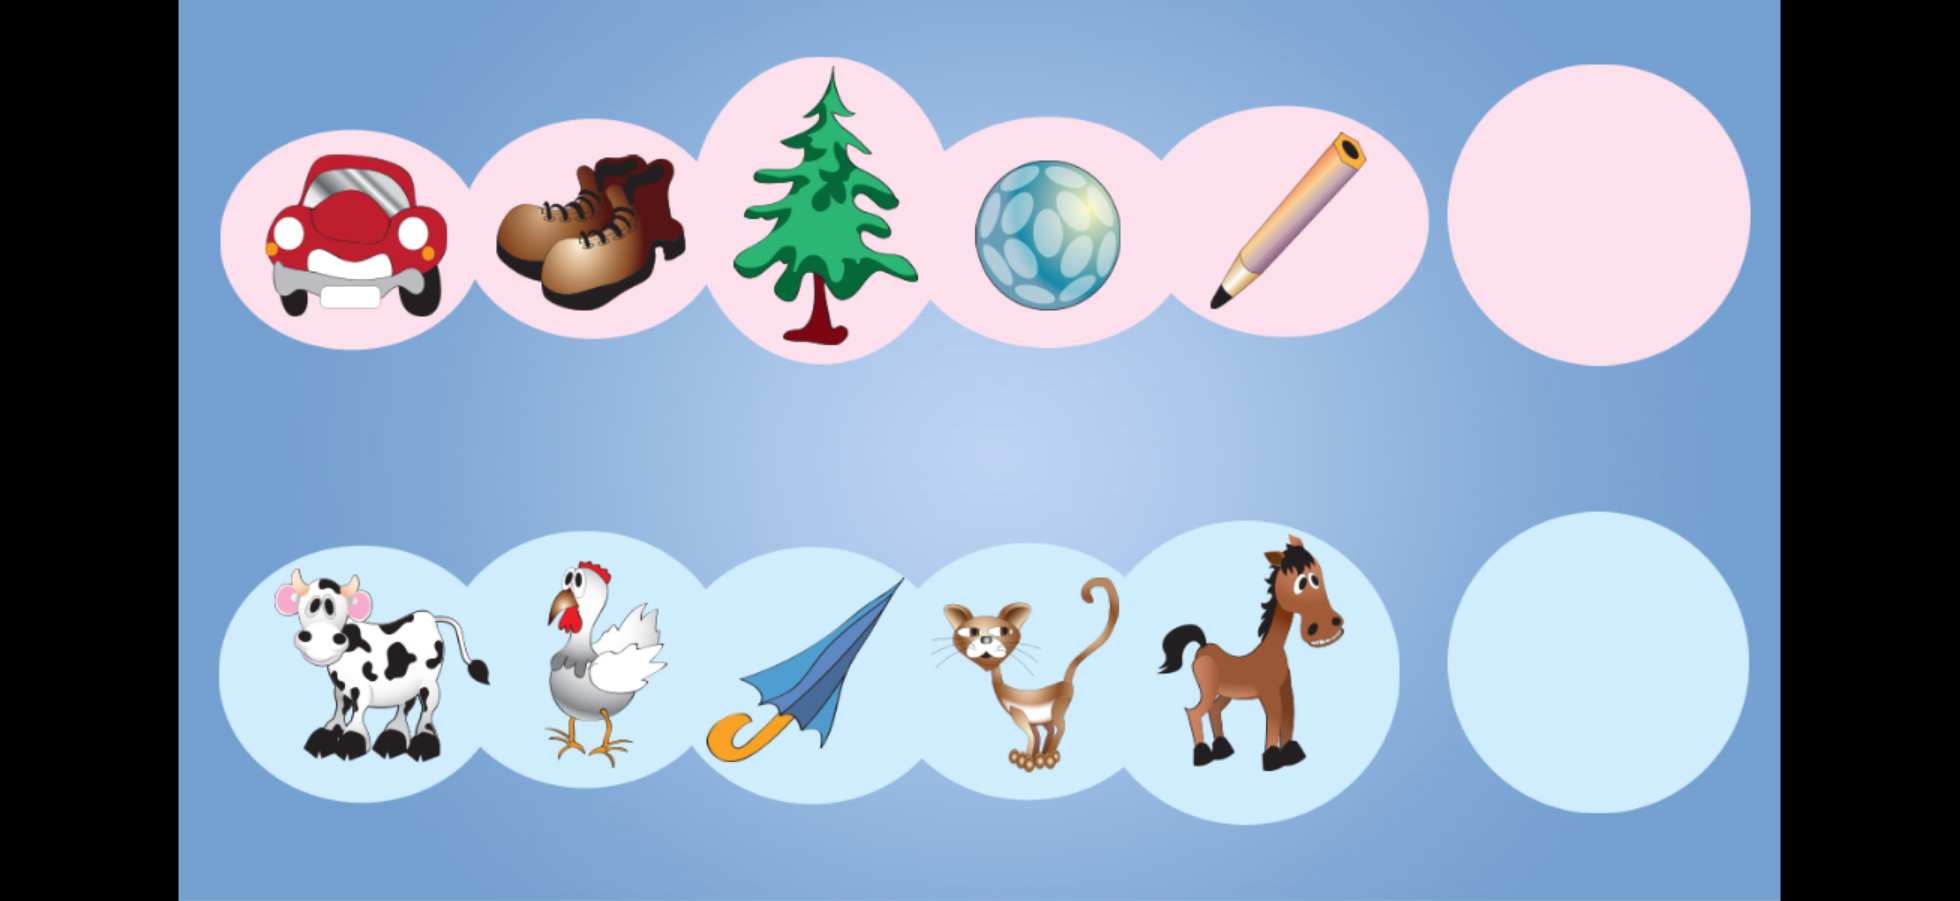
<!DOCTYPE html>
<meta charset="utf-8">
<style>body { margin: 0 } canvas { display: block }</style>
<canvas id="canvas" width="1960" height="901"></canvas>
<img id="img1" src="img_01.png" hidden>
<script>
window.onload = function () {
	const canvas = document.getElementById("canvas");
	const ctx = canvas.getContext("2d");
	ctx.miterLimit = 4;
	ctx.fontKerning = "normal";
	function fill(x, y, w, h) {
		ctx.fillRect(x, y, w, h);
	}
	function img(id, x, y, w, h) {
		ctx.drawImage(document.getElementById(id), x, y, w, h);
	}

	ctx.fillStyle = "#000000";
	fill(0, 0, 1960, 901);
	img("img1", 178, 0, 1603, 901);
};
</script>
